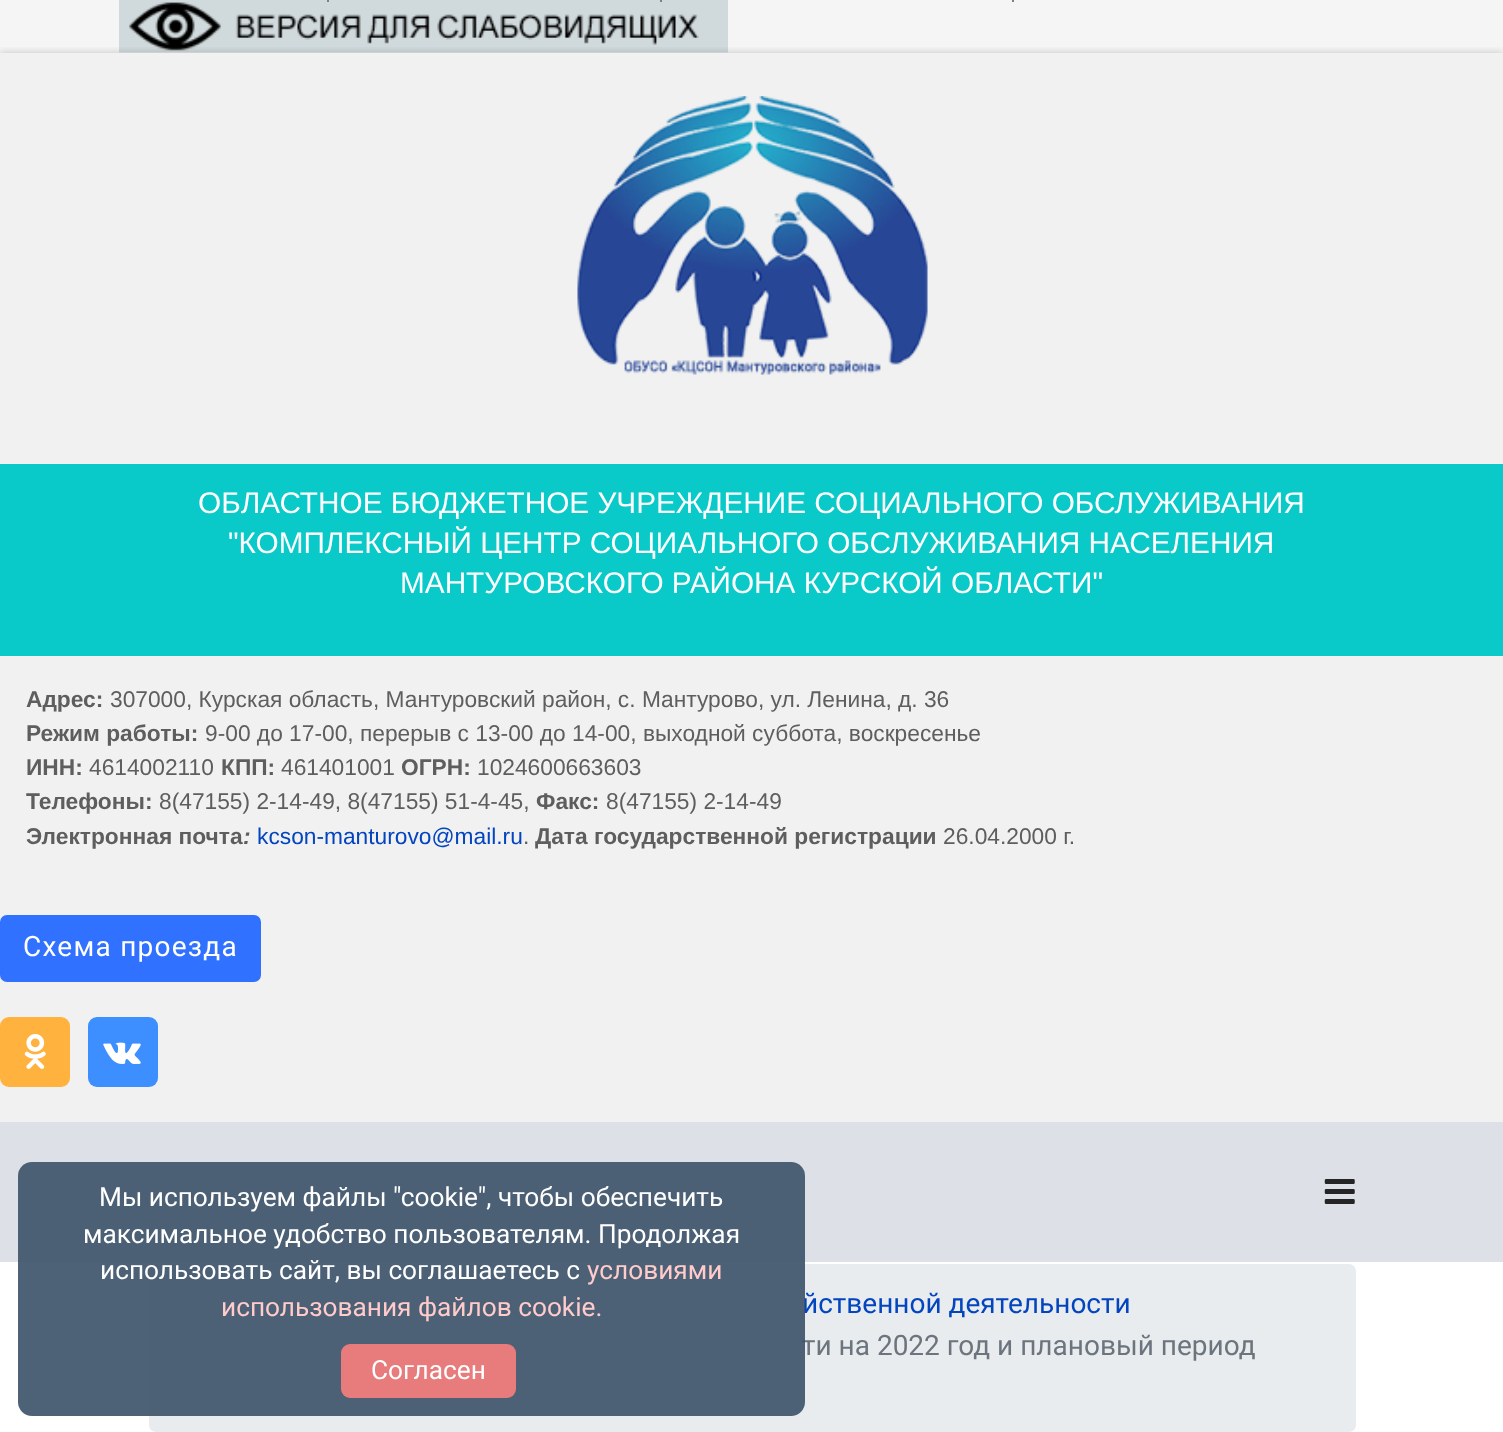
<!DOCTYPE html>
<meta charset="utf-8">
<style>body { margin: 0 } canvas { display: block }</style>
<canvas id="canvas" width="1503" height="1432"></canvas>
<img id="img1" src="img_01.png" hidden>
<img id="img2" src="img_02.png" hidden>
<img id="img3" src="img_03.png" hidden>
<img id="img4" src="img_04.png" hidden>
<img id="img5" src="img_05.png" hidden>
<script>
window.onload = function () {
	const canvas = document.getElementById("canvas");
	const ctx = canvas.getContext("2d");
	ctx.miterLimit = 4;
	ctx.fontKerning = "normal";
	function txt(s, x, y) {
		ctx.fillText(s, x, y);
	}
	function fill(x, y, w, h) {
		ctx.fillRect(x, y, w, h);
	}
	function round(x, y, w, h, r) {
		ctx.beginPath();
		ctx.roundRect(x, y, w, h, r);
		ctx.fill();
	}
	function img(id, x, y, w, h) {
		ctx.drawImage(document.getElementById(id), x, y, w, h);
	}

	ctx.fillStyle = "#FFFFFF";
	fill(0, 0, 1503, 1432);
	ctx.fillStyle = "#F5F5F5";
	fill(0, 0, 1503, 53);
	img("img1", 119, 0, 609, 53);
	ctx.fillStyle = "#808080";
	fill(327, 0, 2, 2);
	fill(660, 0, 2, 2);
	fill(1012, 0, 2, 2);
	ctx.save();
	ctx.beginPath();
	ctx.rect(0, 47, 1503, 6);
	ctx.clip();
	ctx.fillStyle = "rgba(0, 0, 0, 0.2)";
	ctx.filter = "blur(4.5px)";
	ctx.beginPath();
	ctx.rect(0, 53, 1503, 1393);
	ctx.fill();
	ctx.filter = "none";
	ctx.restore();
	ctx.fillStyle = "#F1F1F1";
	fill(0, 53, 1503, 411);
	img("img2", 577, 96, 351, 279);
	fill(0, 656, 1503, 466);
	ctx.fillStyle = "#0AC9C9";
	fill(0, 464, 1503, 192);
	ctx.fillStyle = "#3071FF";
	ctx.beginPath();
	ctx.roundRect(1, 916, 259, 65, 6);
	ctx.fill();
	ctx.strokeStyle = "#3071FF";
	ctx.lineWidth = 2;
	ctx.stroke();
	ctx.fillStyle = "#FFB23D";
	round(0, 1017, 70, 70, 9);
	img("img3", 24, 1034, 22, 35);
	ctx.fillStyle = "#3D8FFF";
	round(88, 1017, 70, 70, 9);
	img("img4", 103, 1042, 38, 22);
	ctx.fillStyle = "#DDE0E6";
	fill(0, 1122, 1503, 140);
	img("img5", 1324, 1179, 31, 25);
	ctx.fillStyle = "#E9ECEF";
	round(149, 1264, 1207, 168, 7);
	ctx.font = "29.75px Liberation Sans";
	ctx.fillStyle = "#FFFFFF";
	txt("ОБЛАСТНОЕ БЮДЖЕТНОЕ УЧРЕЖДЕНИЕ СОЦИАЛЬНОГО ОБСЛУЖИВАНИЯ", 198, 513);
	txt("\"КОМПЛЕКСНЫЙ ЦЕНТР СОЦИАЛЬНОГО ОБСЛУЖИВАНИЯ НАСЕЛЕНИЯ", 228, 553);
	txt("МАНТУРОВСКОГО РАЙОНА КУРСКОЙ ОБЛАСТИ\"", 400, 593);
	ctx.font = "bold 22.75px Liberation Sans";
	ctx.fillStyle = "#5E5E5E";
	txt("Адрес:", 26, 707);
	ctx.font = "22.75px Liberation Sans";
	txt("307000, Курская область, Мантуровский район, с. Мантурово, ул. Ленина, д. 36", 110, 707);
	ctx.font = "bold 22.75px Liberation Sans";
	txt("Режим работы:", 26, 741);
	ctx.font = "22.75px Liberation Sans";
	txt("9-00 до 17-00, перерыв с 13-00 до 14-00, выходной суббота, воскресенье", 205, 741);
	ctx.font = "bold 22.75px Liberation Sans";
	txt("ИНН:", 26, 775);
	ctx.font = "22.75px Liberation Sans";
	txt("4614002110", 89, 775);
	ctx.font = "bold 22.75px Liberation Sans";
	txt("КПП:", 221, 775);
	ctx.font = "22.75px Liberation Sans";
	txt("461401001", 281, 775);
	ctx.font = "bold 22.75px Liberation Sans";
	txt("ОГРН:", 401, 775);
	ctx.font = "22.75px Liberation Sans";
	txt("1024600663603", 477, 775);
	ctx.font = "bold 22.75px Liberation Sans";
	txt("Телефоны:", 26, 809);
	ctx.font = "22.75px Liberation Sans";
	txt("8(47155) 2-14-49, 8(47155) 51-4-45,", 159, 809);
	ctx.font = "bold 22.75px Liberation Sans";
	txt("Факс:", 536, 809);
	ctx.font = "22.75px Liberation Sans";
	txt("8(47155) 2-14-49", 606, 809);
	ctx.font = "bold 22.75px Liberation Sans";
	txt("Электронная почта", 26, 844);
	ctx.font = "italic bold 22.75px Liberation Sans";
	txt(":", 243, 844);
	ctx.font = "22.75px Liberation Sans";
	ctx.fillStyle = "#0345BF";
	txt("kcson-manturovo@mail.ru", 257, 844);
	ctx.fillStyle = "#5E5E5E";
	txt(".", 523, 844);
	ctx.font = "bold 22.75px Liberation Sans";
	txt("Дата государственной регистрации", 535, 844);
	ctx.font = "22.75px Liberation Sans";
	txt("26.04.2000 г.", 943, 844);
	ctx.letterSpacing = "1.25px";
	ctx.font = "28px Roboto";
	ctx.fillStyle = "#FFFFFF";
	txt("Схема проезда", 23, 956);
	ctx.letterSpacing = "0px";
	ctx.fillStyle = "#0345BF";
	txt("йственной деятельности", 802, 1313);
	ctx.fillStyle = "#6C757D";
	txt("ти на 2022 год и плановый период", 802, 1355);
	ctx.fillStyle = "rgba(59, 81, 104, 0.9)";
	round(18, 1162, 787, 254, 14);
	ctx.font = "26.25px Roboto";
	ctx.fillStyle = "#FFFFFF";
	txt("Мы используем файлы \"cookie\", чтобы обеспечить", 99, 1206);
	txt("максимальное удобство пользователям. Продолжая", 83, 1243);
	txt("использовать сайт, вы соглашаетесь с", 100, 1279);
	ctx.fillStyle = "#FFCBCB";
	txt("условиями", 587, 1279);
	txt("использования файлов cookie.", 221, 1316);
	ctx.fillStyle = "#E87B7B";
	round(341, 1344, 175, 54, 9);
	ctx.fillStyle = "#FFFFFF";
	txt("Согласен", 371, 1379);
};
</script>
